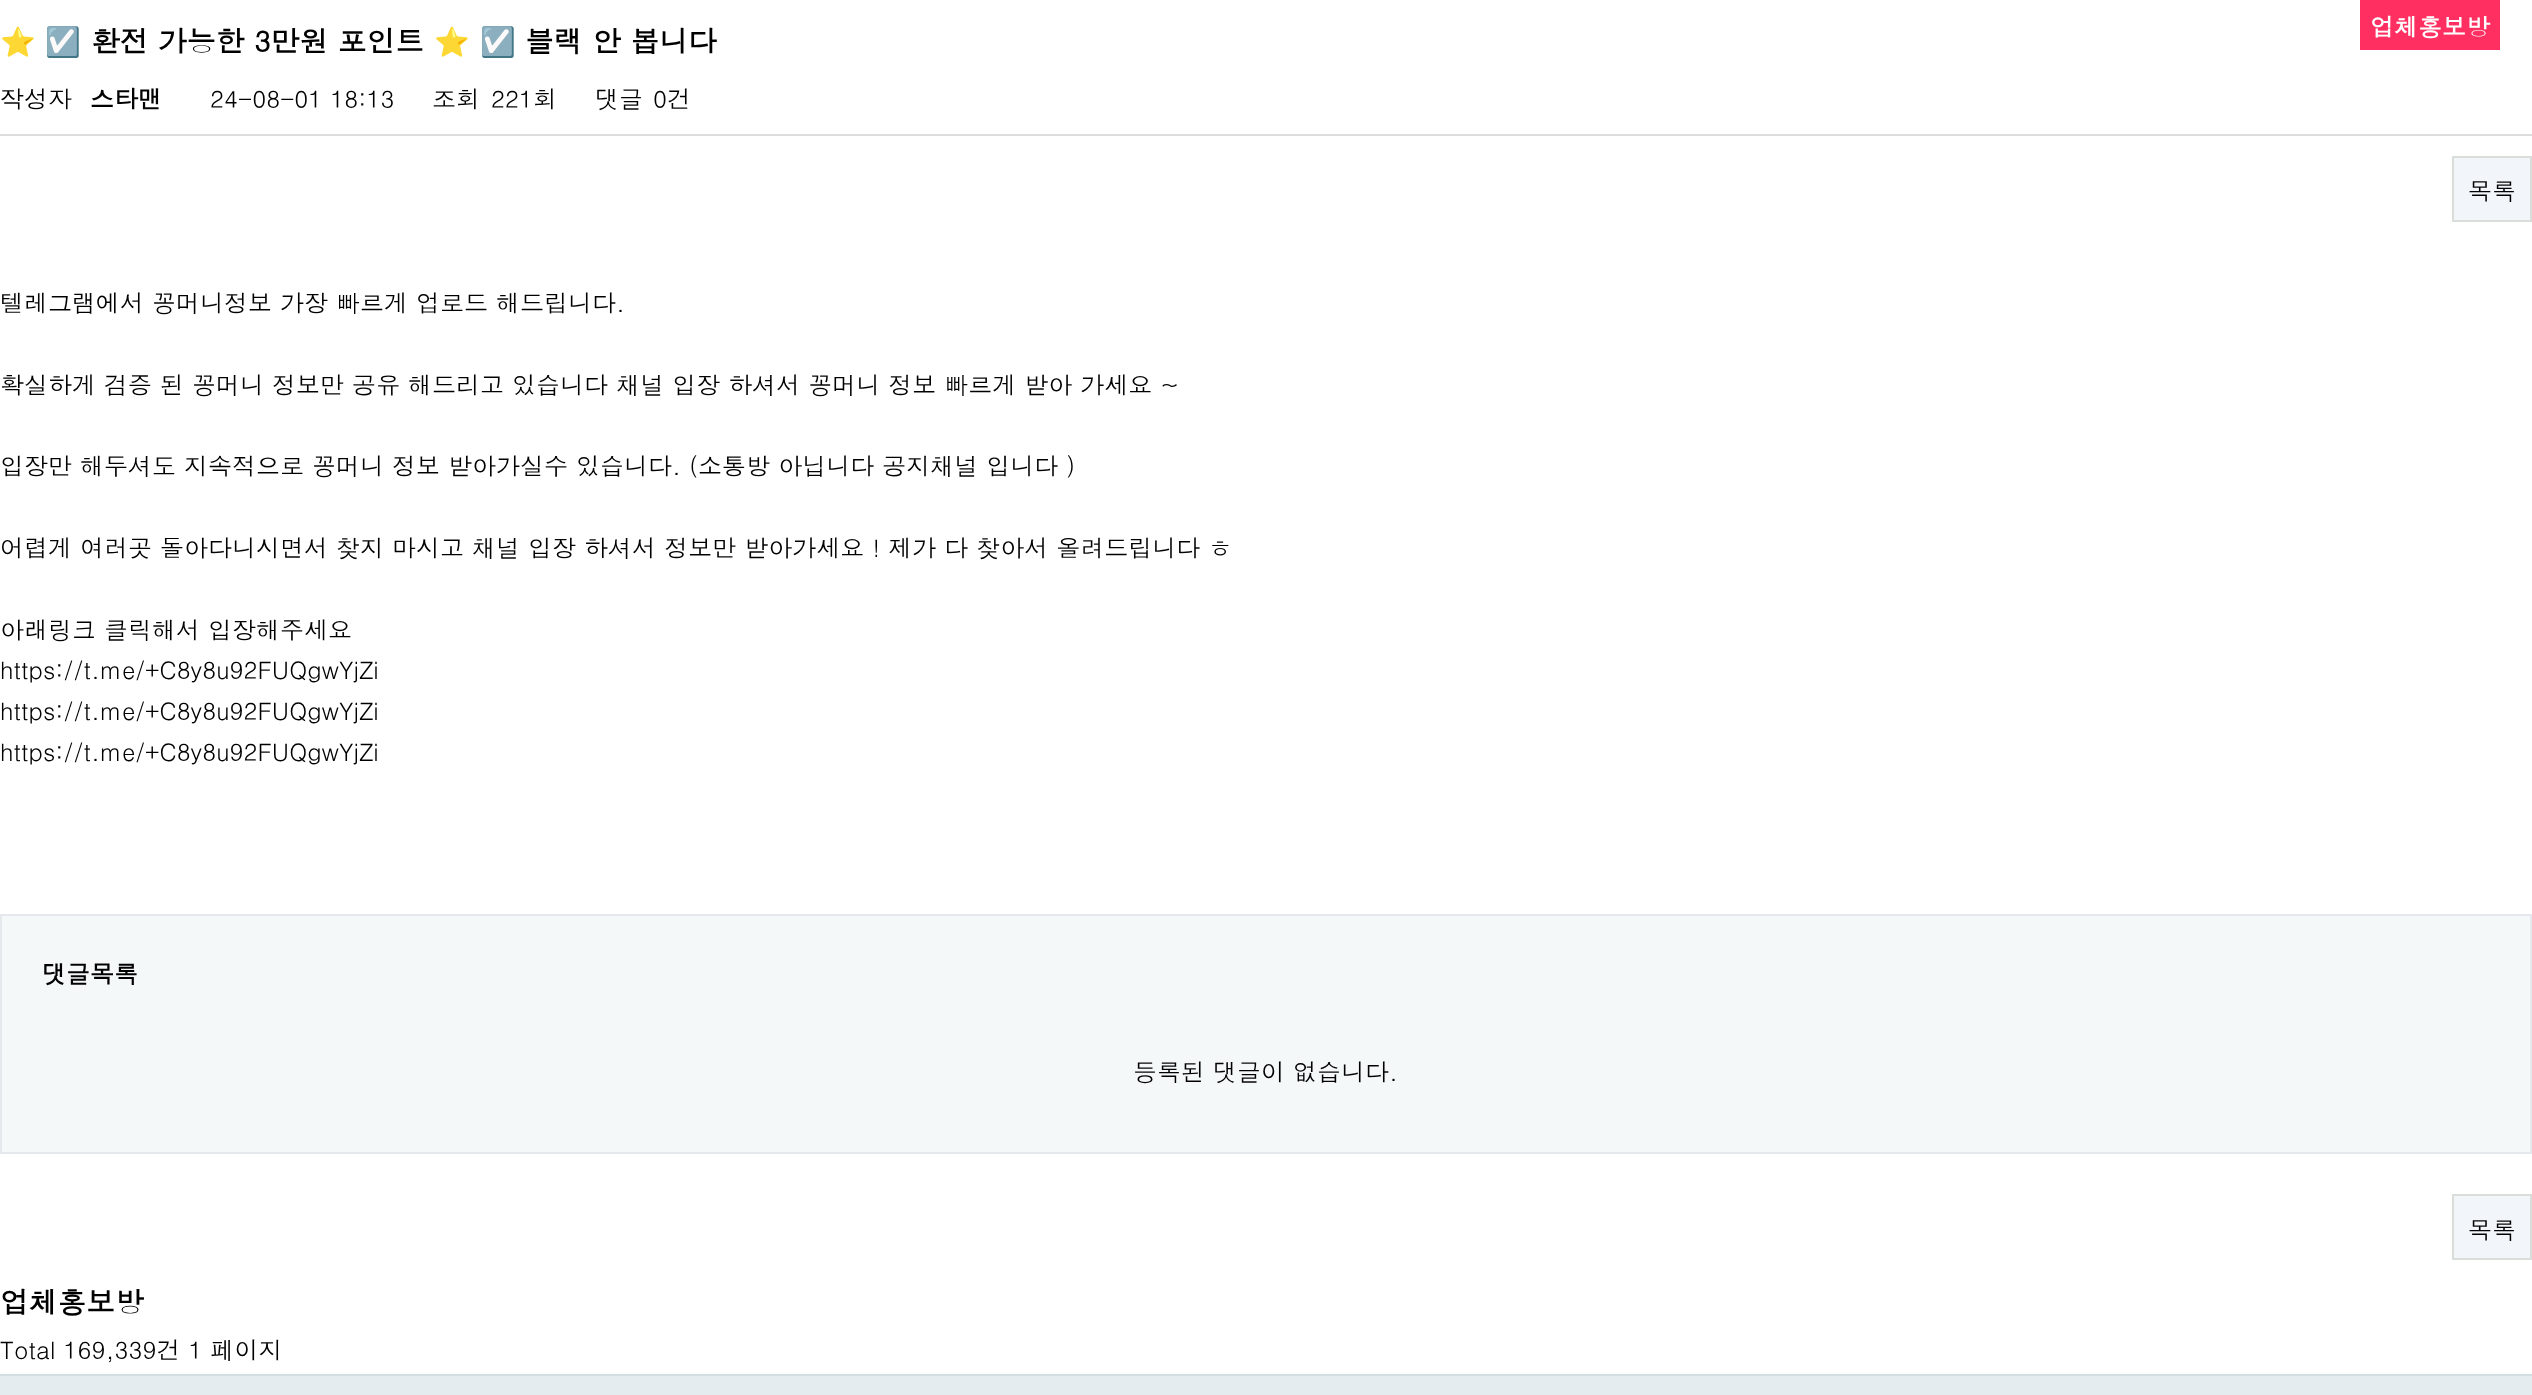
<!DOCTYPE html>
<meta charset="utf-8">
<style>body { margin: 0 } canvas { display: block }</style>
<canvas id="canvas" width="2532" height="1395"></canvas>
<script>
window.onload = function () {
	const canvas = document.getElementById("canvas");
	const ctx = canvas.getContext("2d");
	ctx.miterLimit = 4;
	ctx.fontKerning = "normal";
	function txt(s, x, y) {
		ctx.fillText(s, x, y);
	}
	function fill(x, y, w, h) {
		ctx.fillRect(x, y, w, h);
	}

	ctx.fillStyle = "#FFFFFF";
	fill(0, 0, 2532, 1395);
	ctx.fillStyle = "#FF3061";
	fill(2360, 0, 140, 50);
	ctx.fillStyle = "#DDDDDD";
	fill(0, 134, 2532, 2);
	ctx.fillStyle = "#F2F5F9";
	ctx.beginPath();
	ctx.rect(2453, 157, 78, 64);
	ctx.fill();
	ctx.strokeStyle = "#D9DED9";
	ctx.lineWidth = 2;
	ctx.stroke();
	ctx.fillStyle = "#F5F8F9";
	ctx.beginPath();
	ctx.rect(1, 915, 2530, 238);
	ctx.fill();
	ctx.strokeStyle = "#E5E8EC";
	ctx.stroke();
	ctx.fillStyle = "#F2F5F9";
	ctx.beginPath();
	ctx.rect(2453, 1195, 78, 64);
	ctx.fill();
	ctx.strokeStyle = "#D9DED9";
	ctx.stroke();
	ctx.fillStyle = "#D1DEE2";
	fill(0, 1374, 2532, 2);
	ctx.fillStyle = "#E5ECEF";
	fill(0, 1376, 2532, 19);
	ctx.font = "bold 24px Dotum";
	ctx.fillStyle = "#FFFFFF";
	txt("업체홍보방", 2370, 36);
	ctx.font = "bold 28.75px Noto Color Emoji";
	ctx.fillStyle = "#000000";
	txt("⭐️", 0, 52);
	txt("☑️", 45, 52);
	ctx.font = "bold 28.75px Dotum";
	txt("환전 가능한 3만원 포인트", 91, 52);
	ctx.font = "bold 28.75px Noto Color Emoji";
	txt("⭐️", 434, 52);
	txt("☑️", 480, 52);
	ctx.font = "bold 28.75px Dotum";
	txt("블랙 안 봅니다", 525, 52);
	ctx.font = "24px Dotum";
	txt("작성자", 0, 108);
	ctx.font = "bold 24px Dotum";
	txt("스타맨", 90, 108);
	ctx.font = "24px Dotum";
	txt("24-08-01 18:13", 210, 108);
	txt("조회", 432, 108);
	txt("221회", 491, 108);
	txt("댓글", 595, 108);
	txt("0건", 653, 108);
	txt("목록", 2468, 200);
	txt("텔레그램에서 꽁머니정보 가장 빠르게 업로드 해드립니다.", 0, 312);
	txt("확실하게 검증 된 꽁머니 정보만 공유 해드리고 있습니다 채널 입장 하셔서 꽁머니 정보 빠르게 받아 가세요 ~", 0, 394);
	txt("입장만 해두셔도 지속적으로 꽁머니 정보 받아가실수 있습니다. (소통방 아닙니다 공지채널 입니다 )", 0, 475);
	txt("어렵게 여러곳 돌아다니시면서 찾지 마시고 채널 입장 하셔서 정보만 받아가세요 ! 제가 다 찾아서 올려드립니다 ㅎ", 0, 557);
	txt("아래링크 클릭해서 입장해주세요", 0, 639);
	txt("https://t.me/+C8y8u92FUQgwYjZi", 0, 679);
	txt("https://t.me/+C8y8u92FUQgwYjZi", 0, 720);
	txt("https://t.me/+C8y8u92FUQgwYjZi", 0, 761);
	ctx.font = "bold 24px Dotum";
	txt("댓글목록", 42, 983);
	ctx.font = "24px Dotum";
	txt("등록된 댓글이 없습니다.", 1133, 1081);
	txt("목록", 2468, 1239);
	ctx.font = "bold 28.75px Dotum";
	txt("업체홍보방", 0, 1313);
	ctx.font = "24px Dotum";
	txt("Total 169,339건 1 페이지", 0, 1359);
};
</script>
